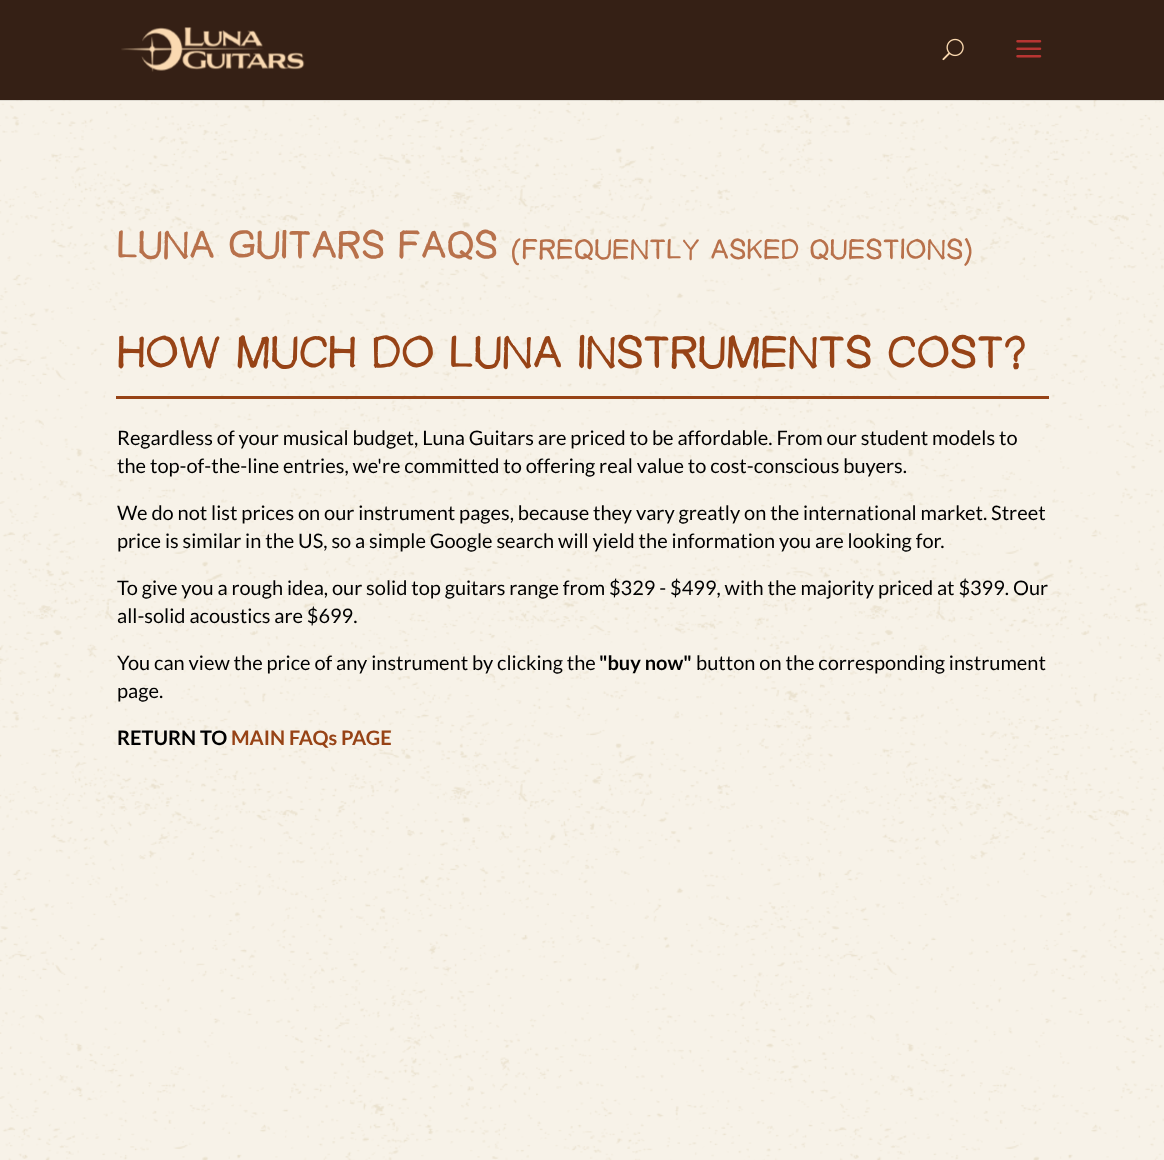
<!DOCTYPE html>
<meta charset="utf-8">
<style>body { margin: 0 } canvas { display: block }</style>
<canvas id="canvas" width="1164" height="1160"></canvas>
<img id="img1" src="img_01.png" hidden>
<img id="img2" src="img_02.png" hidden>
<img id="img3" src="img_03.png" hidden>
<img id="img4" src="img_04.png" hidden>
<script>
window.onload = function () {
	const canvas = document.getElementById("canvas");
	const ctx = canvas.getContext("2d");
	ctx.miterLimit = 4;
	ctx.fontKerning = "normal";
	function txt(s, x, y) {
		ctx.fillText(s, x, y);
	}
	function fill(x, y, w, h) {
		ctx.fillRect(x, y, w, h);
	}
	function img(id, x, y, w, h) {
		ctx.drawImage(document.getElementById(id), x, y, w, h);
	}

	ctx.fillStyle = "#FFFFFF";
	fill(0, 0, 1164, 1160);
	img("img1", 0, 100, 1164, 1060);
	ctx.fillStyle = "rgba(0, 0, 0, 0.1)";
	fill(0, 100, 1164, 1);
	ctx.fillStyle = "#352015";
	fill(0, 0, 1164, 100);
	img("img2", 121, 27, 184, 45);
	img("img3", 942, 38, 22, 23);
	img("img4", 1016, 40, 26, 18);
	ctx.fillStyle = "#974316";
	fill(116, 396, 933, 3);
	ctx.letterSpacing = "1.25px";
	ctx.font = "bold 47.5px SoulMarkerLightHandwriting";
	ctx.fillStyle = "#B8714B";
	txt("LUNA GUITARS FAQS", 117, 261);
	ctx.font = "bold 34.25px SoulMarkerLightHandwriting";
	txt("(FREQUENTLY ASKED QUESTIONS)", 511, 261);
	ctx.font = "bold 55px SoulMarkerLightHandwriting";
	ctx.fillStyle = "#974316";
	txt("HOW MUCH DO LUNA INSTRUMENTS COST?", 117, 371);
	ctx.letterSpacing = "0px";
	ctx.font = "20px Lato";
	ctx.fillStyle = "#000000";
	txt("Regardless of your musical budget, Luna Guitars are priced to be affordable. From our student models to", 117, 445);
	txt("the top-of-the-line entries, we're committed to offering real value to cost-conscious buyers.", 117, 473);
	txt("We do not list prices on our instrument pages, because they vary greatly on the international market. Street", 117, 520);
	txt("price is similar in the US, so a simple Google search will yield the information you are looking for.", 117, 548);
	txt("To give you a rough idea, our solid top guitars range from $329 - $499, with the majority priced at $399. Our", 117, 595);
	txt("all-solid acoustics are $699.", 117, 623);
	txt("You can view the price of any instrument by clicking the", 117, 670);
	ctx.font = "bold 20px Lato";
	txt("\"buy now\"", 599, 670);
	ctx.font = "20px Lato";
	txt("button on the corresponding instrument", 696, 670);
	txt("page.", 117, 698);
	ctx.font = "bold 20px Lato";
	txt("RETURN TO", 117, 745);
	ctx.fillStyle = "#974316";
	txt("MAIN FAQs PAGE", 231, 745);
};
</script>
